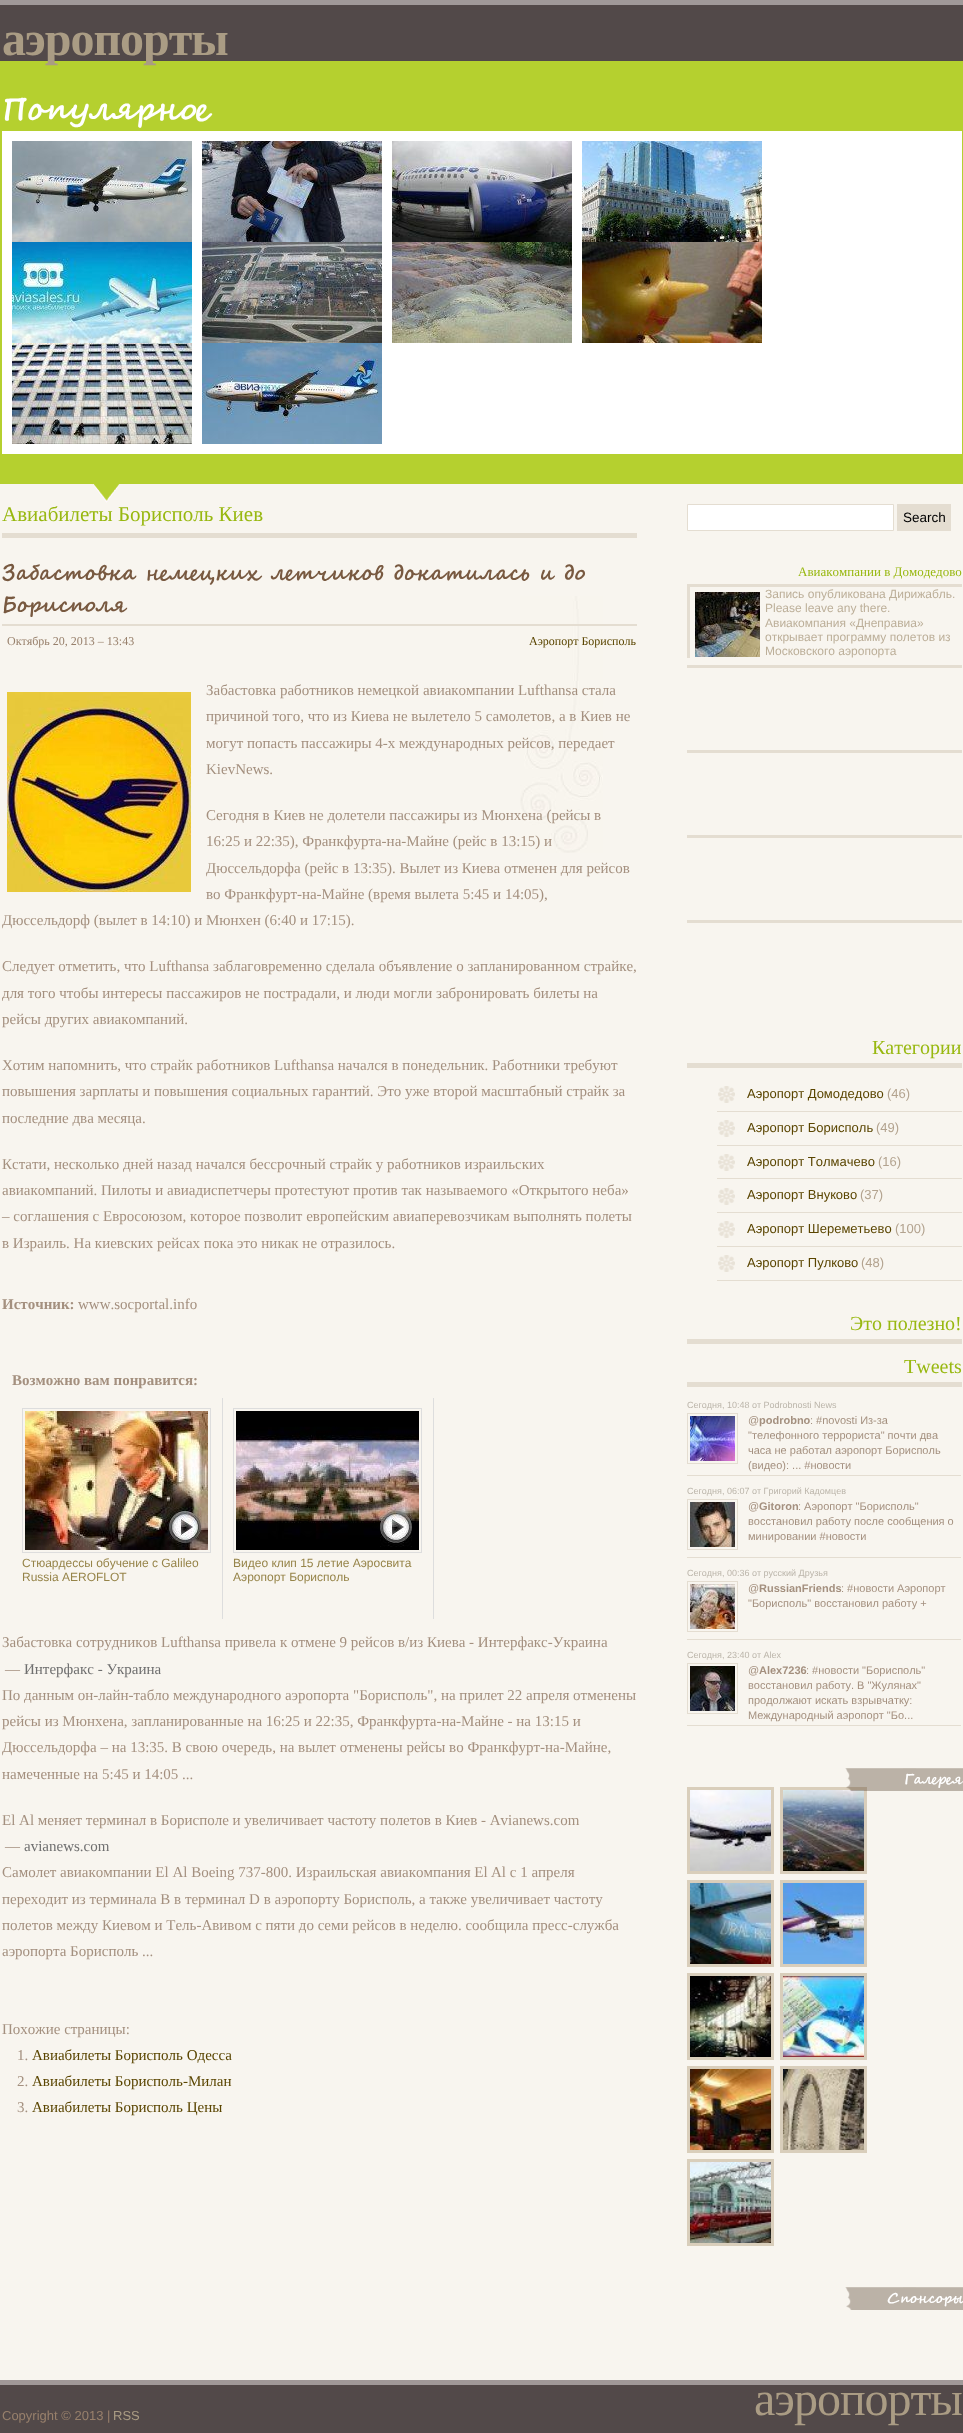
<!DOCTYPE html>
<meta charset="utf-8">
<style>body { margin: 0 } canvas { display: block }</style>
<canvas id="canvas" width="963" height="2433"></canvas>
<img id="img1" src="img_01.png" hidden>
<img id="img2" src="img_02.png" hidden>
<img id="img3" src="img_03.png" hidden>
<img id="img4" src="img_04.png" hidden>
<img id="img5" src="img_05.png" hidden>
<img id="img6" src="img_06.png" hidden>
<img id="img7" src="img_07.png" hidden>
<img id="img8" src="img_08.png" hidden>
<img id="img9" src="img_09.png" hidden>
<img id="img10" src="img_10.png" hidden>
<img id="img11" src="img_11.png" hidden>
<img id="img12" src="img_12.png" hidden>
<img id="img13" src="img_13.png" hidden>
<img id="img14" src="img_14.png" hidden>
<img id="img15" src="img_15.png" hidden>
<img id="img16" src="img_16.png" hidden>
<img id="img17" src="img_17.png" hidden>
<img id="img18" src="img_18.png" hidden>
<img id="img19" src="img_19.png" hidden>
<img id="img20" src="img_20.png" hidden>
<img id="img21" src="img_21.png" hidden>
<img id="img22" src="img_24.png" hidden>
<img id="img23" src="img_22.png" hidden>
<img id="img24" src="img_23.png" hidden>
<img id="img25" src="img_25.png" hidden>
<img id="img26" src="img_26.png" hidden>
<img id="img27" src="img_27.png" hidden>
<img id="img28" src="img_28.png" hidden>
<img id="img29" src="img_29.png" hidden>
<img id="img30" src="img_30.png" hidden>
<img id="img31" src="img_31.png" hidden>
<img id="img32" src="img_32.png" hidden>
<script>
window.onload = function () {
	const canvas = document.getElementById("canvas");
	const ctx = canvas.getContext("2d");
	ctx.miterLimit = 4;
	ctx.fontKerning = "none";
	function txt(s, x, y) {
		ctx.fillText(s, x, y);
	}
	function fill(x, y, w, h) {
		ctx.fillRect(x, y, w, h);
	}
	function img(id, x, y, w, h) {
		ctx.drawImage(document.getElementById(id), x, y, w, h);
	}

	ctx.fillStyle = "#F8F5EF";
	fill(0, 0, 963, 2433);
	ctx.fillStyle = "#524949";
	fill(0, 5, 963, 56);
	ctx.fillStyle = "#A09999";
	fill(0, 0, 963, 5);
	ctx.fillStyle = "#B5D02F";
	fill(0, 61, 963, 423);
	ctx.fillStyle = "#FFFFFF";
	fill(2, 131, 960, 323);
	img("img1", 12, 141, 180, 101);
	img("img2", 202, 141, 180, 101);
	img("img3", 392, 141, 180, 101);
	img("img4", 582, 141, 180, 101);
	img("img5", 12, 242, 180, 101);
	img("img6", 202, 242, 180, 101);
	img("img7", 392, 242, 180, 101);
	img("img8", 582, 242, 180, 101);
	img("img9", 12, 343, 180, 101);
	img("img10", 202, 343, 180, 101);
	img("img11", 92, 484, 28, 19);
	ctx.fillStyle = "#E4DDD1";
	fill(2, 533, 635, 5);
	img("img12", 520, 596, 83, 257);
	fill(2, 624, 635, 2);
	img("img13", 7, 692, 184, 200);
	ctx.fillStyle = "#DDDDDD";
	fill(222, 1398, 1, 221);
	ctx.strokeStyle = "#DDDDDD";
	ctx.strokeRect(22.5, 1408.5, 188, 144);
	img("img14", 25, 1411, 183, 139);
	fill(433, 1398, 1, 221);
	ctx.strokeRect(233.5, 1408.5, 188, 144);
	img("img15", 236, 1411, 183, 139);
	ctx.fillStyle = "#FFFFFF";
	ctx.beginPath();
	ctx.rect(687.5, 504.5, 206, 26);
	ctx.fill();
	ctx.strokeStyle = "#E4DDD1";
	ctx.stroke();
	ctx.fillStyle = "#E4DDD1";
	fill(897, 504, 54, 27);
	fill(687, 584, 275, 3);
	fill(687, 587, 3, 71);
	img("img16", 695, 592, 65, 65);
	fill(687, 665, 275, 3);
	fill(687, 750, 275, 3);
	fill(687, 835, 275, 3);
	fill(687, 920, 275, 3);
	fill(687, 1063, 275, 5);
	img("img17", 718, 1086, 17, 17);
	fill(717, 1111, 245, 1);
	img("img17", 718, 1120, 17, 17);
	fill(717, 1145, 245, 1);
	img("img17", 718, 1154, 17, 17);
	fill(717, 1178, 245, 1);
	img("img17", 718, 1188, 17, 17);
	fill(717, 1212, 245, 1);
	img("img17", 718, 1221, 17, 17);
	fill(717, 1246, 245, 1);
	img("img17", 718, 1255, 17, 17);
	fill(717, 1280, 245, 1);
	fill(687, 1339, 275, 5);
	fill(687, 1382, 275, 5);
	fill(687, 1475, 274, 1);
	ctx.strokeRect(687.5, 1413.5, 50, 50);
	img("img18", 690, 1416, 45, 45);
	fill(687, 1557, 274, 1);
	ctx.strokeRect(687.5, 1499.5, 50, 50);
	img("img19", 690, 1502, 45, 45);
	fill(687, 1639, 274, 1);
	ctx.strokeRect(687.5, 1581.5, 50, 50);
	img("img20", 690, 1584, 45, 45);
	fill(687, 1725, 274, 1);
	ctx.strokeRect(687.5, 1663.5, 50, 50);
	img("img21", 690, 1666, 45, 45);
	ctx.strokeStyle = "#D9CEBB";
	ctx.lineWidth = 3;
	ctx.strokeRect(781.5, 1788.5, 84, 84);
	img("img22", 783, 1790, 81, 81);
	img("img23", 845, 1768, 118, 23);
	ctx.strokeRect(688.5, 1788.5, 84, 84);
	img("img24", 690, 1790, 81, 81);
	ctx.strokeRect(688.5, 1881.5, 84, 84);
	img("img25", 690, 1883, 81, 81);
	ctx.strokeRect(781.5, 1881.5, 84, 84);
	img("img26", 783, 1883, 81, 81);
	ctx.strokeRect(688.5, 1974.5, 84, 84);
	img("img27", 690, 1976, 81, 81);
	ctx.strokeRect(781.5, 1974.5, 84, 84);
	img("img28", 783, 1976, 81, 81);
	ctx.strokeRect(688.5, 2067.5, 84, 84);
	img("img29", 690, 2069, 81, 81);
	ctx.strokeRect(781.5, 2067.5, 84, 84);
	img("img30", 783, 2069, 81, 81);
	ctx.strokeRect(688.5, 2160.5, 84, 84);
	img("img31", 690, 2162, 81, 81);
	img("img32", 845, 2287, 118, 23);
	ctx.fillStyle = "#524949";
	fill(0, 2385, 963, 48);
	ctx.fillStyle = "#A09999";
	fill(0, 2380, 963, 5);
	ctx.letterSpacing = "-1px";
	ctx.font = "bold 48px Liberation Serif";
	ctx.fillStyle = "#AA9C84";
	txt("аэропорты", 2, 55);
	ctx.letterSpacing = "0px";
	ctx.font = "bold 32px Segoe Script";
	ctx.fillStyle = "#FFFFFF";
	txt("Популярное", 2, 120);
	ctx.font = "21px Liberation Serif";
	ctx.fillStyle = "#98B810";
	txt("Авиабилеты Борисполь Киев", 2, 521);
	ctx.wordSpacing = "1.5px";
	ctx.font = "bold 21px Segoe Script";
	ctx.fillStyle = "#785940";
	txt("Забастовка немецких летчиков докатилась и до", 2, 580);
	ctx.wordSpacing = "0px";
	txt("Борисполя", 2, 612);
	ctx.font = "12px Liberation Serif";
	ctx.fillStyle = "#98806C";
	txt("Октябрь 20, 2013 – 13:43", 7, 645);
	ctx.fillStyle = "#5A4500";
	txt("Аэропорт Борисполь", 529, 645);
	ctx.font = "15px Liberation Serif";
	ctx.fillStyle = "#A4907F";
	txt("Забастовка работников немецкой авиакомпании Lufthansa стала", 206, 695);
	txt("причиной того, что из Киева не вылетело 5 самолетов, а в Киев не", 206, 721);
	txt("могут попасть пассажиры 4-х международных рейсов, передает", 206, 748);
	txt("KievNews.", 206, 774);
	txt("Сегодня в Киев не долетели пассажиры из Мюнхена (рейсы в", 206, 820);
	txt("16:25 и 22:35), Франкфурта-на-Майне (рейс в 13:15) и", 206, 846);
	txt("Дюссельдорфа (рейс в 13:35). Вылет из Киева отменен для рейсов", 206, 873);
	txt("во Франкфурт-на-Майне (время вылета 5:45 и 14:05),", 206, 899);
	txt("Дюссельдорф (вылет в 14:10) и Мюнхен (6:40 и 17:15).", 2, 925);
	txt("Следует отметить, что Lufthansa заблаговременно сделала объявление о запланированном страйке,", 2, 971);
	txt("для того чтобы интересы пассажиров не пострадали, и люди могли забронировать билеты на", 2, 998);
	txt("рейсы других авиакомпаний.", 2, 1024);
	txt("Хотим напомнить, что страйк работников Lufthansa начался в понедельник. Работники требуют", 2, 1070);
	txt("повышения зарплаты и повышения социальных гарантий. Это уже второй масштабный страйк за", 2, 1096);
	txt("последние два месяца.", 2, 1123);
	txt("Кстати, несколько дней назад начался бессрочный страйк у работников израильских", 2, 1169);
	txt("авиакомпаний. Пилоты и авиадиспетчеры протестуют против так называемого «Открытого неба»", 2, 1195);
	txt("– соглашения с Евросоюзом, которое позволит европейским авиаперевозчикам выполнять полеты", 2, 1221);
	txt("в Израиль. На киевских рейсах пока это никак не отразилось.", 2, 1248);
	ctx.font = "bold 15px Liberation Serif";
	txt("Источник:", 2, 1309);
	ctx.font = "15px Liberation Serif";
	txt("www.socportal.info", 78, 1309);
	ctx.font = "bold 15px Liberation Serif";
	txt("Возможно вам понравится:", 12, 1385);
	ctx.font = "12px Liberation Sans";
	ctx.fillStyle = "#968449";
	txt("Cтюардессы обучение c Galileo", 22, 1567);
	txt("Russia AEROFLOT", 22, 1581);
	txt("Видео клип 15 летие Аэросвита", 233, 1567);
	txt("Аэропорт Борисполь", 233, 1581);
	ctx.font = "15px Liberation Serif";
	ctx.fillStyle = "#A4907F";
	txt("Забастовка сотрудников Lufthansa привела к отмене 9 рейсов в/из Киева - Интерфакс-Украина", 2, 1647);
	txt("—", 5, 1674);
	ctx.fillStyle = "#6F6F6F";
	txt("Интерфакс - Украина", 24, 1674);
	ctx.fillStyle = "#A4907F";
	txt("По данным он-лайн-табло международного аэропорта \"Борисполь\", на прилет 22 апреля отменены", 2, 1700);
	txt("рейсы из Мюнхена, запланированные на 16:25 и 22:35, Франкфурта-на-Майне - на 13:15 и", 2, 1726);
	txt("Дюссельдорфа – на 13:35. В свою очередь, на вылет отменены рейсы во Франкфурт-на-Майне,", 2, 1752);
	txt("намеченные на 5:45 и 14:05 ...", 2, 1779);
	txt("El Al меняет терминал в Борисполе и увеличивает частоту полетов в Киев - Avianews.com", 2, 1825);
	txt("—", 5, 1851);
	ctx.fillStyle = "#6F6F6F";
	txt("avianews.com", 24, 1851);
	ctx.fillStyle = "#A4907F";
	txt("Самолет авиакомпании El Al Boeing 737-800. Израильская авиакомпания El", 2, 1877);
	txt("Al с 1 апреля", 491, 1877);
	txt("переходит из терминала B в терминал D в аэропорту Борисполь, а также увеличивает частоту", 2, 1904);
	txt("полетов между Киевом и Тель-Авивом с пяти до семи рейсов в неделю. сообщила пресс-служба", 2, 1930);
	txt("аэропорта Борисполь ...", 2, 1956);
	txt("Похожие страницы:", 2, 2034);
	txt("1.", 17, 2060);
	ctx.fillStyle = "#5A4500";
	txt("Авиабилеты Борисполь Одесса", 32, 2060);
	ctx.fillStyle = "#A4907F";
	txt("2.", 17, 2086);
	ctx.fillStyle = "#5A4500";
	txt("Авиабилеты Борисполь-Милан", 32, 2086);
	ctx.fillStyle = "#A4907F";
	txt("3.", 17, 2112);
	ctx.fillStyle = "#5A4500";
	txt("Авиабилеты Борисполь Цены", 32, 2112);
	ctx.font = "13.5px Liberation Sans";
	ctx.fillStyle = "#000000";
	txt("Search", 903, 522);
	ctx.font = "13px Liberation Serif";
	ctx.fillStyle = "#98B810";
	txt("Авиакомпании в Домодедово", 798, 576);
	ctx.font = "12px Liberation Sans";
	ctx.fillStyle = "#BCAF99";
	txt("Запись опубликована Дирижабль.", 765, 598);
	txt("Please leave any there.", 765, 612);
	txt("Авиакомпания «Днеправиа»", 765, 627);
	txt("открывает программу полетов из", 765, 641);
	txt("Московского аэропорта", 765, 655);
	ctx.font = "20px Liberation Serif";
	ctx.fillStyle = "#98B810";
	txt("Категории", 872, 1054);
	ctx.font = "13px Liberation Sans";
	ctx.fillStyle = "#5A4500";
	txt("Аэропорт Домодедово", 747, 1098);
	ctx.fillStyle = "#B3A38F";
	txt("(46)", 887, 1098);
	ctx.fillStyle = "#5A4500";
	txt("Аэропорт Борисполь", 747, 1132);
	ctx.fillStyle = "#B3A38F";
	txt("(49)", 876, 1132);
	ctx.fillStyle = "#5A4500";
	txt("Аэропорт Толмачево", 747, 1166);
	ctx.fillStyle = "#B3A38F";
	txt("(16)", 878, 1166);
	ctx.fillStyle = "#5A4500";
	txt("Аэропорт Внуково", 747, 1199);
	ctx.fillStyle = "#B3A38F";
	txt("(37)", 860, 1199);
	ctx.fillStyle = "#5A4500";
	txt("Аэропорт Шереметьево", 747, 1233);
	ctx.fillStyle = "#B3A38F";
	txt("(100)", 895, 1233);
	ctx.fillStyle = "#5A4500";
	txt("Аэропорт Пулково", 747, 1267);
	ctx.fillStyle = "#B3A38F";
	txt("(48)", 861, 1267);
	ctx.font = "20px Liberation Serif";
	ctx.fillStyle = "#98B810";
	txt("Это полезно!", 850, 1330);
	txt("Tweets", 904, 1373);
	ctx.font = "9px Liberation Sans";
	ctx.fillStyle = "#BBB5AA";
	txt("Сегодня, 10:48 от Podrobnosti News", 687, 1408);
	ctx.font = "11px Liberation Sans";
	ctx.fillStyle = "#A4907F";
	txt("@", 748, 1424);
	ctx.font = "bold 11px Liberation Sans";
	txt("podrobno", 759, 1424);
	ctx.font = "11px Liberation Sans";
	txt(": #novosti Из-за", 810, 1424);
	txt("\"телефонного террориста\" почти два", 748, 1439);
	txt("часа не работал аэропорт Борисполь", 748, 1454);
	txt("(видео): ... #новости", 748, 1469);
	ctx.font = "9px Liberation Sans";
	ctx.fillStyle = "#BBB5AA";
	txt("Сегодня, 06:07 от Григорий Кадомцев", 687, 1494);
	ctx.font = "11px Liberation Sans";
	ctx.fillStyle = "#A4907F";
	txt("@", 748, 1510);
	ctx.font = "bold 11px Liberation Sans";
	txt("Gitoron", 759, 1510);
	ctx.font = "11px Liberation Sans";
	txt(": Аэропорт \"Борисполь\"", 798, 1510);
	txt("восстановил работу после сообщения о", 748, 1525);
	txt("минировании #новости", 748, 1540);
	ctx.font = "9px Liberation Sans";
	ctx.fillStyle = "#BBB5AA";
	txt("Сегодня, 00:36 от русский Друзья", 687, 1576);
	ctx.font = "11px Liberation Sans";
	ctx.fillStyle = "#A4907F";
	txt("@", 748, 1592);
	ctx.font = "bold 11px Liberation Sans";
	txt("RussianFriends", 759, 1592);
	ctx.font = "11px Liberation Sans";
	txt(": #новости Аэропорт", 841, 1592);
	txt("\"Борисполь\" восстановил работу +", 748, 1607);
	ctx.font = "9px Liberation Sans";
	ctx.fillStyle = "#BBB5AA";
	txt("Сегодня, 23:40 от Alex", 687, 1658);
	ctx.font = "11px Liberation Sans";
	ctx.fillStyle = "#A4907F";
	txt("@", 748, 1674);
	ctx.font = "bold 11px Liberation Sans";
	txt("Alex7236", 759, 1674);
	ctx.font = "11px Liberation Sans";
	txt(": #новости \"Борисполь\"", 806, 1674);
	txt("восстановил работу. В \"Жулянах\"", 748, 1689);
	txt("продолжают искать взрывчатку:", 748, 1704);
	txt("Международный аэропорт \"Бо...", 748, 1719);
	ctx.font = "bold 14px Segoe Script";
	ctx.fillStyle = "#FFFFFF";
	txt("Галерея", 904, 1784);
	txt("Спонсоры", 887, 2303);
	ctx.font = "13px Liberation Sans";
	ctx.fillStyle = "#98806C";
	txt("Copyright © 2013 |", 2, 2420);
	ctx.fillStyle = "#AA9C84";
	txt("RSS", 113, 2420);
	ctx.letterSpacing = "-1px";
	ctx.font = "48px Liberation Serif";
	txt("аэропорты", 754, 2415);
};
</script>
